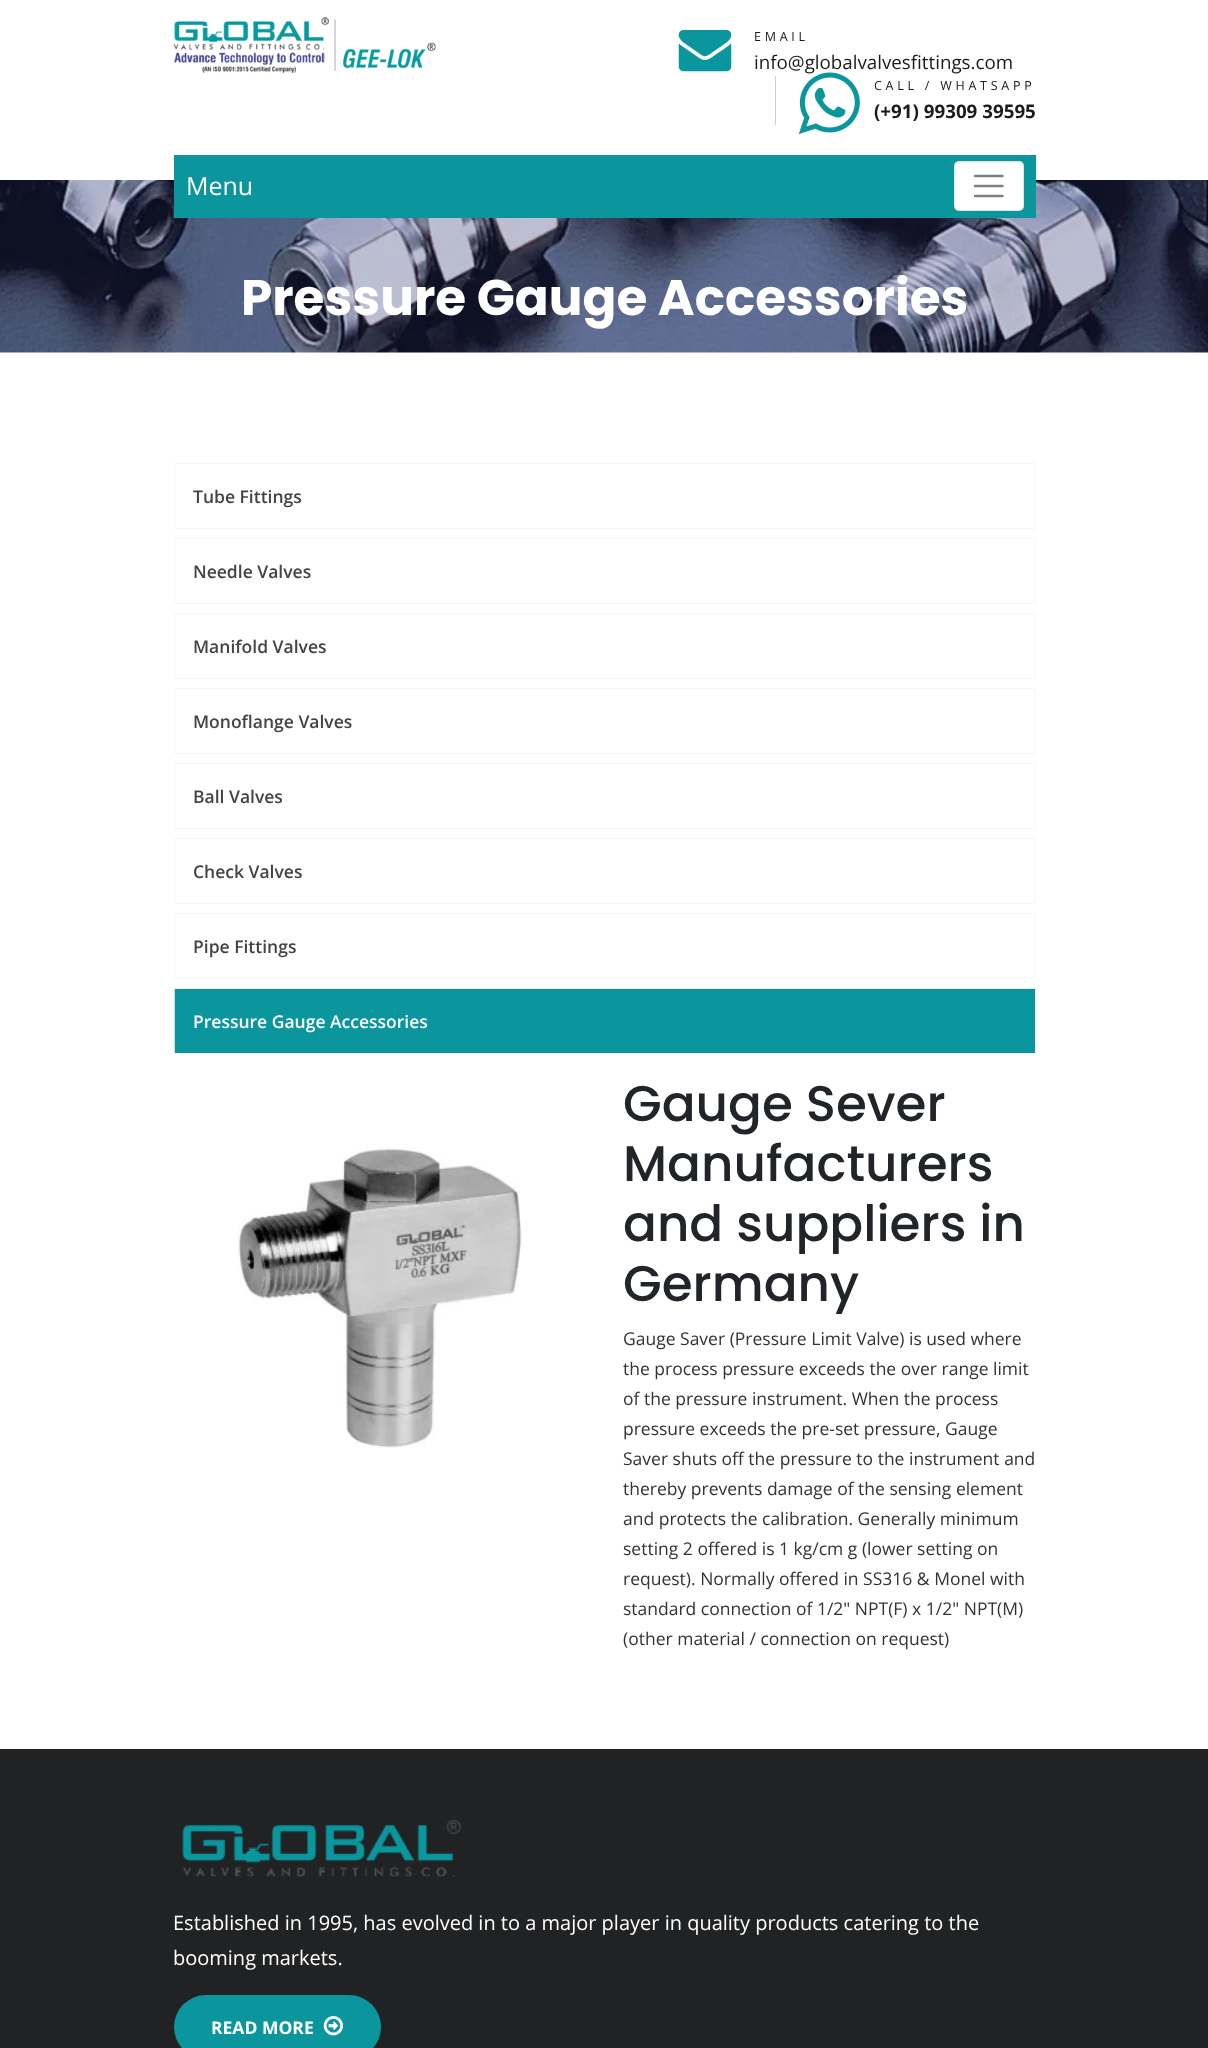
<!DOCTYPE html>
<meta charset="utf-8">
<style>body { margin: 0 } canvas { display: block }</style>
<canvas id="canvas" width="1208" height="2048"></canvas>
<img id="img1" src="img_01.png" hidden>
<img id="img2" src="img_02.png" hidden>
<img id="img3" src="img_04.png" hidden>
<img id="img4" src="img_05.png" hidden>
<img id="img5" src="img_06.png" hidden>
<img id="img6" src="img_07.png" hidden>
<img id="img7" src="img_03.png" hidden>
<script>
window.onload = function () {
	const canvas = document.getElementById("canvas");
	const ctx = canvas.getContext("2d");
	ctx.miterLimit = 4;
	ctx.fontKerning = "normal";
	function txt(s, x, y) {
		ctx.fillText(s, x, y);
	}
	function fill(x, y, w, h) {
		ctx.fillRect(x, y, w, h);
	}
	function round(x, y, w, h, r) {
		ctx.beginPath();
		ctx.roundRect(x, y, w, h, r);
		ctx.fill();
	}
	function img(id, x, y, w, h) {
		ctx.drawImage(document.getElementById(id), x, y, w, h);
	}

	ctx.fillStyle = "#FFFFFF";
	fill(0, 0, 1208, 2048);
	img("img1", 173, 17, 263, 56);
	img("img2", 678, 30, 54, 42);
	ctx.fillStyle = "#D2D1D1";
	fill(775, 76, 1, 49);
	img("img3", 0, 180, 1208, 173);
	ctx.fillStyle = "#0B969D";
	fill(174, 155, 862, 63);
	ctx.fillStyle = "#FFFFFF";
	round(954, 161, 70, 50, 5);
	ctx.beginPath();
	ctx.roundRect(954.5, 161.5, 69, 49, 4.5);
	ctx.strokeStyle = "rgba(0, 0, 0, 0.1)";
	ctx.stroke();
	ctx.beginPath();
	ctx.moveTo(975, 176);
	ctx.lineTo(1002.5, 176);
	ctx.moveTo(975, 186);
	ctx.lineTo(1002.5, 186);
	ctx.moveTo(975, 196);
	ctx.lineTo(1002.5, 196);
	ctx.strokeStyle = "#808080";
	ctx.lineWidth = 2.5;
	ctx.lineCap = "round";
	ctx.stroke();
	ctx.strokeStyle = "#F7F7F7";
	ctx.lineWidth = 1;
	ctx.strokeRect(174.5, 463.5, 861, 65);
	ctx.strokeRect(174.5, 538.5, 861, 65);
	ctx.strokeRect(174.5, 613.5, 861, 65);
	ctx.strokeRect(174.5, 688.5, 861, 65);
	ctx.strokeRect(174.5, 763.5, 861, 65);
	ctx.strokeRect(174.5, 838.5, 861, 65);
	ctx.strokeRect(174.5, 913.5, 861, 65);
	ctx.fillStyle = "#0B969D";
	ctx.beginPath();
	ctx.rect(174.5, 988.5, 861, 65);
	ctx.fill();
	ctx.stroke();
	img("img4", 238, 1147, 284, 301);
	ctx.fillStyle = "#212223";
	fill(0, 1749, 1208, 299);
	img("img5", 182, 1820, 280, 57);
	ctx.fillStyle = "#0B969D";
	round(174, 1995, 207, 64, 32);
	img("img6", 323, 2016, 20, 20);
	ctx.letterSpacing = "3.75px";
	ctx.font = "12.5px Open Sans";
	ctx.fillStyle = "#1C1A1A";
	txt("EMAIL", 754, 41);
	ctx.letterSpacing = "0px";
	ctx.font = "18.75px Open Sans";
	txt("info@globalvalvesfittings.com", 754, 69);
	img("img7", 798, 72, 62, 62);
	ctx.letterSpacing = "3.75px";
	ctx.font = "12.5px Open Sans";
	txt("CALL / WHATSAPP", 874, 90);
	ctx.letterSpacing = "0px";
	ctx.font = "bold 18.75px Open Sans";
	txt("(+91) 99309 39595", 874, 118);
	ctx.font = "25px Open Sans";
	ctx.fillStyle = "#FFFFFF";
	txt("Menu", 186, 195);
	ctx.font = "bold 50px Poppins";
	txt("Pressure Gauge Accessories", 241, 315);
	ctx.font = "600 17.5px Open Sans";
	ctx.fillStyle = "#444444";
	txt("Tube Fittings", 193, 503);
	txt("Needle Valves", 193, 578);
	txt("Manifold Valves", 193, 653);
	txt("Monoflange Valves", 193, 728);
	txt("Ball Valves", 193, 803);
	txt("Check Valves", 193, 878);
	txt("Pipe Fittings", 193, 953);
	ctx.fillStyle = "#FFFFFF";
	txt("Pressure Gauge Accessories", 193, 1028);
	ctx.font = "500 50px Poppins";
	ctx.fillStyle = "#212529";
	txt("Gauge Sever", 623, 1121);
	txt("Manufacturers", 623, 1181);
	txt("and suppliers in", 623, 1241);
	txt("Germany", 623, 1301);
	ctx.font = "17.5px Open Sans";
	ctx.fillStyle = "#333333";
	txt("Gauge Saver (Pressure Limit Valve) is used where", 623, 1345);
	txt("the process pressure exceeds the over range limit", 623, 1375);
	txt("of the pressure instrument. When the process", 623, 1405);
	txt("pressure exceeds the pre-set pressure, Gauge", 623, 1435);
	txt("Saver shuts off the pressure to the instrument and", 623, 1465);
	txt("thereby prevents damage of the sensing element", 623, 1495);
	txt("and protects the calibration. Generally minimum", 623, 1525);
	txt("setting 2 offered is 1 kg/cm g (lower setting on", 623, 1555);
	txt("request). Normally offered in SS316 & Monel with", 623, 1585);
	txt("standard connection of 1/2\" NPT(F) x 1/2\" NPT(M)", 623, 1615);
	txt("(other material / connection on request)", 623, 1645);
	ctx.font = "20px Open Sans";
	ctx.fillStyle = "#FFFFFF";
	txt("Established in 1995, has evolved in to a major player in quality products catering to the", 173, 1930);
	txt("booming markets.", 173, 1965);
	ctx.font = "bold 17.5px Open Sans";
	txt("READ MORE", 211, 2034);
};
</script>
